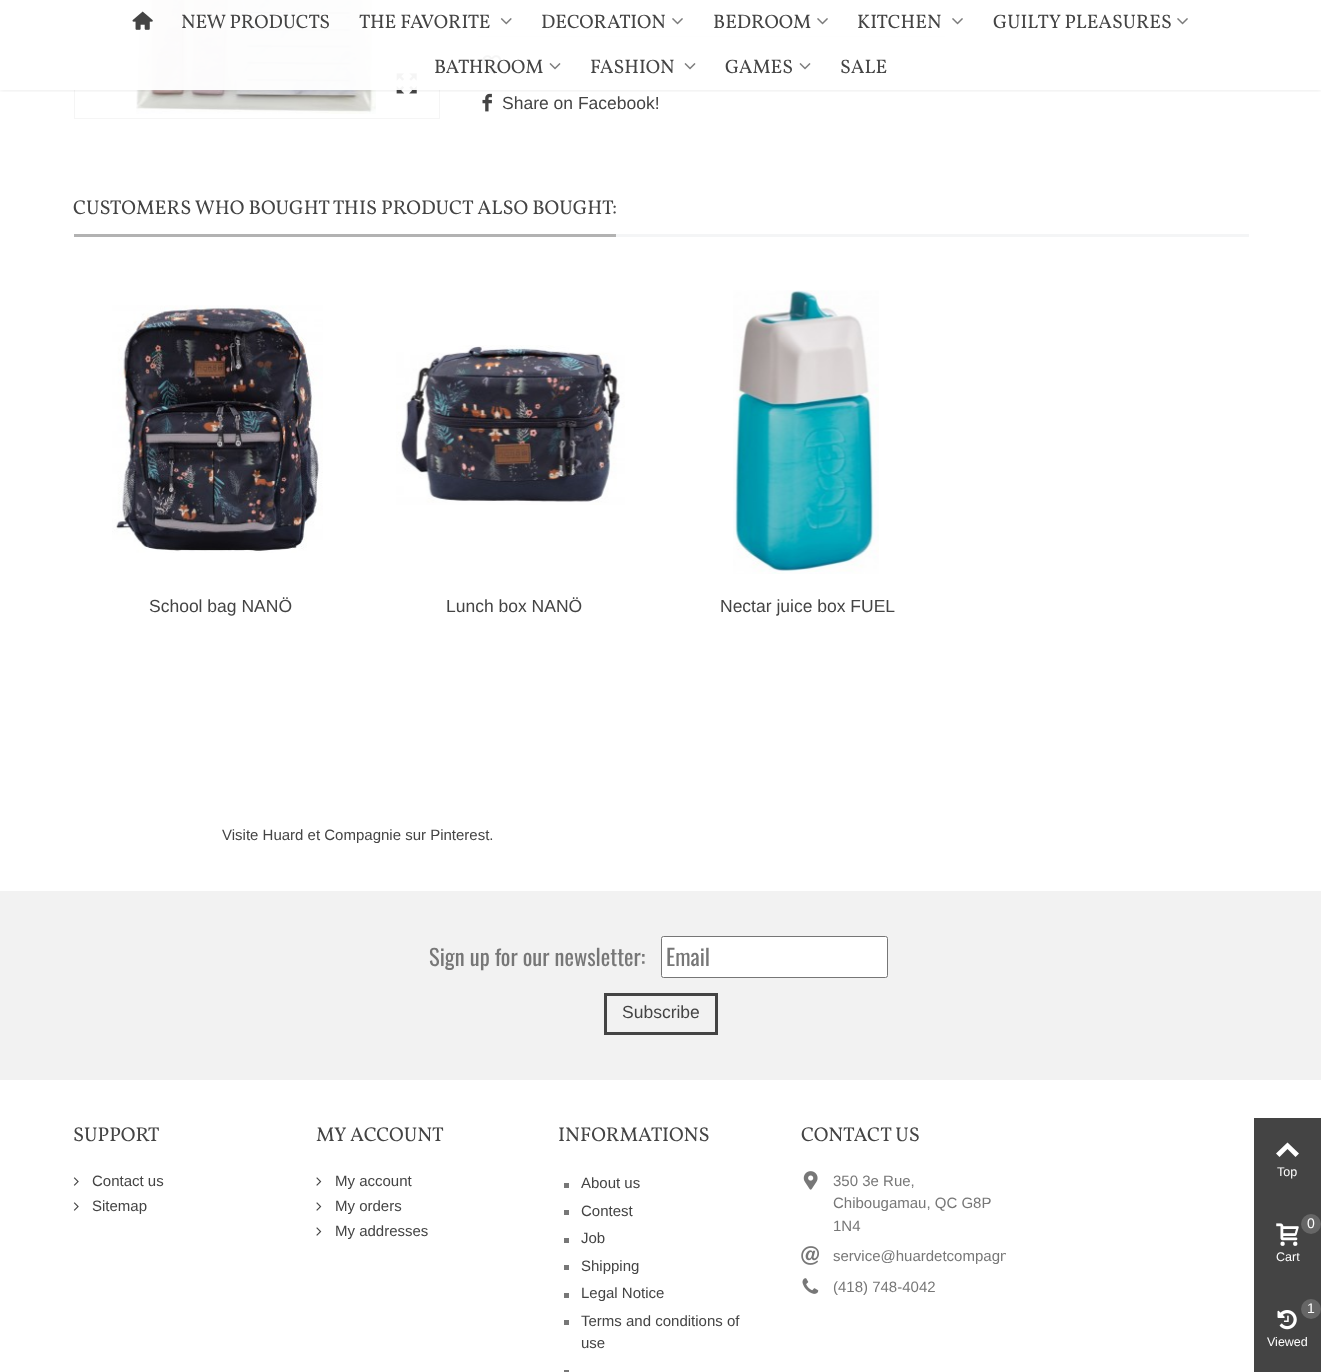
<!DOCTYPE html>
<meta charset="utf-8">
<style>body { margin: 0 } canvas { display: block }</style>
<canvas id="canvas" width="1321" height="1372"></canvas>
<img id="img1" src="img_06.png" hidden>
<img id="img2" src="img_07.png" hidden>
<img id="img3" src="img_08.png" hidden>
<img id="img4" src="img_09.png" hidden>
<img id="img5" src="img_01.png" hidden>
<img id="img6" src="img_02.png" hidden>
<img id="img7" src="img_03.png" hidden>
<img id="img8" src="img_04.png" hidden>
<img id="img9" src="img_05.png" hidden>
<img id="img10" src="img_10.png" hidden>
<img id="img11" src="img_11.png" hidden>
<img id="img12" src="img_12.png" hidden>
<img id="img13" src="img_13.png" hidden>
<img id="img14" src="img_14.png" hidden>
<img id="img15" src="img_15.png" hidden>
<img id="img16" src="img_16.png" hidden>
<img id="img17" src="img_17.png" hidden>
<img id="img18" src="img_18.png" hidden>
<img id="img19" src="img_19.png" hidden>
<script>
window.onload = function () {
	const canvas = document.getElementById("canvas");
	const ctx = canvas.getContext("2d");
	ctx.miterLimit = 4;
	ctx.fontKerning = "normal";
	function txt(s, x, y) {
		ctx.fillText(s, x, y);
	}
	function fill(x, y, w, h) {
		ctx.fillRect(x, y, w, h);
	}
	function img(id, x, y, w, h) {
		ctx.drawImage(document.getElementById(id), x, y, w, h);
	}

	ctx.fillStyle = "#FFFFFF";
	fill(0, 0, 1321, 1372);
	ctx.strokeStyle = "#F5F5F5";
	ctx.strokeRect(74.5, -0.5, 365, 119);
	img("img1", 136, 0, 240, 114);
	img("img2", 396, 73, 21, 21);
	ctx.fillStyle = "#E5E5E5";
	fill(478, 36, 467, 1);
	img("img3", 482, 55, 20, 18);
	img("img4", 482, 93, 10, 19);
	ctx.save();
	ctx.beginPath();
	ctx.rect(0, 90, 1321, 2);
	ctx.clip();
	ctx.fillStyle = "rgba(0, 0, 0, 0.1)";
	ctx.filter = "blur(2.5px)";
	ctx.beginPath();
	ctx.rect(0, 0, 1321, 90);
	ctx.fill();
	ctx.filter = "none";
	ctx.restore();
	ctx.fillStyle = "rgba(255, 255, 255, 0.95)";
	fill(74, 0, 871, 90);
	img("img5", 132, 11, 21, 19);
	img("img6", 500, 18, 12, 7);
	img("img7", 672, 18, 11, 7);
	img("img7", 817, 18, 11, 7);
	img("img7", 952, 18, 11, 7);
	img("img7", 1177, 18, 11, 7);
	img("img8", 549, 63, 12, 7);
	img("img9", 684, 63, 12, 7);
	img("img9", 799, 63, 12, 7);
	ctx.fillStyle = "#F4F5F6";
	fill(616, 234, 633, 3);
	ctx.fillStyle = "#B2B2B2";
	fill(74, 234, 542, 3);
	img("img10", 112, 305, 211, 248);
	img("img11", 396, 345, 229, 160);
	img("img12", 733, 290, 146, 284);
	ctx.fillStyle = "#F2F2F2";
	fill(0, 891, 1321, 189);
	ctx.fillStyle = "#FFFFFF";
	ctx.beginPath();
	ctx.roundRect(661.5, 936.5, 226, 41, 2);
	ctx.fill();
	ctx.strokeStyle = "#767676";
	ctx.stroke();
	ctx.strokeStyle = "#444444";
	ctx.lineWidth = 3;
	ctx.strokeRect(605.5, 994.5, 111, 39);
	img("img13", 73, 1177, 6, 9);
	img("img13", 73, 1202, 6, 9);
	img("img14", 316, 1177, 6, 9);
	img("img14", 316, 1202, 6, 9);
	img("img14", 316, 1227, 6, 9);
	ctx.fillStyle = "#777777";
	fill(564, 1183, 5, 5);
	fill(564, 1210, 5, 5);
	fill(564, 1238, 5, 5);
	fill(564, 1265, 5, 5);
	fill(564, 1293, 5, 5);
	fill(564, 1320, 5, 5);
	fill(564, 1370, 5, 2);
	img("img15", 803, 1171, 15, 19);
	img("img16", 801, 1246, 18, 19);
	img("img17", 802, 1278, 17, 16);
	ctx.fillStyle = "#444444";
	fill(1254, 1118, 67, 254);
	ctx.fillStyle = "#FFFFFF";
	ctx.beginPath();
	ctx.moveTo(1276, 1153.5);
	ctx.lineTo(1287.5, 1142.5);
	ctx.lineTo(1299, 1153.5);
	ctx.lineTo(1295.5, 1157);
	ctx.lineTo(1287.5, 1149);
	ctx.lineTo(1279.5, 1157);
	ctx.closePath();
	ctx.fill();
	img("img18", 1276, 1223, 23, 23);
	ctx.fillStyle = "#666666";
	ctx.beginPath();
	ctx.arc(1311, 1224, 10, 0, Math.PI * 2);
	ctx.fill();
	ctx.beginPath();
	ctx.arc(1311, 1309, 10, 0, Math.PI * 2);
	ctx.fill();
	img("img19", 1277, 1310, 20, 20);
	ctx.font = "19.5px Vollkorn";
	ctx.fillStyle = "#444444";
	txt("NEW PRODUCTS", 181, 28);
	txt("THE FAVORITE", 359, 28);
	txt("DECORATION", 541, 28);
	txt("BEDROOM", 713, 28);
	txt("KITCHEN", 857, 28);
	txt("GUILTY PLEASURES", 993, 28);
	txt("BATHROOM", 434, 73);
	txt("FASHION", 590, 73);
	txt("GAMES", 725, 73);
	txt("SALE", 840, 73);
	ctx.font = "17.5px Liberation Sans";
	txt("Share on Facebook!", 502, 109);
	ctx.font = "20px Vollkorn";
	txt("CUSTOMERS WHO BOUGHT THIS PRODUCT ALSO BOUGHT:", 73, 214);
	ctx.font = "17.5px Liberation Sans";
	txt("School bag NANÖ", 149, 612);
	txt("Lunch box NANÖ", 446, 612);
	txt("Nectar juice box FUEL", 720, 612);
	ctx.font = "15px Liberation Sans";
	txt("Visite Huard et Compagnie sur Pinterest.", 222, 840);
	ctx.font = "22.5px Oswald";
	ctx.fillStyle = "#777777";
	txt("Sign up for our newsletter:", 429, 966);
	txt("Email", 666, 966);
	ctx.font = "17.5px Liberation Sans";
	ctx.fillStyle = "#444444";
	txt("Subscribe", 622, 1018);
	ctx.font = "20px Vollkorn";
	txt("SUPPORT", 73, 1141);
	ctx.font = "15px Liberation Sans";
	txt("Contact us", 92, 1186);
	txt("Sitemap", 92, 1211);
	ctx.font = "20px Vollkorn";
	txt("MY ACCOUNT", 316, 1141);
	ctx.font = "15px Liberation Sans";
	txt("My account", 335, 1186);
	txt("My orders", 335, 1211);
	txt("My addresses", 335, 1236);
	ctx.font = "20px Vollkorn";
	txt("INFORMATIONS", 558, 1141);
	ctx.font = "15px Liberation Sans";
	txt("About us", 581, 1188);
	txt("Contest", 581, 1216);
	txt("Job", 581, 1243);
	txt("Shipping", 581, 1271);
	txt("Legal Notice", 581, 1298);
	txt("Terms and conditions of", 581, 1326);
	txt("use", 581, 1348);
	ctx.font = "20px Vollkorn";
	txt("CONTACT US", 801, 1141);
	ctx.font = "15px Liberation Sans";
	ctx.fillStyle = "#777777";
	txt("350 3e Rue,", 833, 1186);
	txt("Chibougamau, QC G8P", 833, 1208);
	txt("1N4", 833, 1231);
	ctx.save();
	ctx.beginPath();
	ctx.rect(801, 1245, 205, 24);
	ctx.clip();
	txt("service@huardetcompagn", 833, 1261);
	ctx.restore();
	txt("(418) 748-4042", 833, 1292);
	ctx.font = "12.5px Liberation Sans";
	ctx.fillStyle = "#FFFFFF";
	txt("Top", 1277, 1176);
	ctx.font = "14px Liberation Sans";
	txt("0", 1307, 1228);
	ctx.font = "12.5px Liberation Sans";
	txt("Cart", 1276, 1261);
	ctx.font = "14px Liberation Sans";
	txt("1", 1307, 1313);
	ctx.font = "12.5px Liberation Sans";
	txt("Viewed", 1267, 1346);
};
</script>
